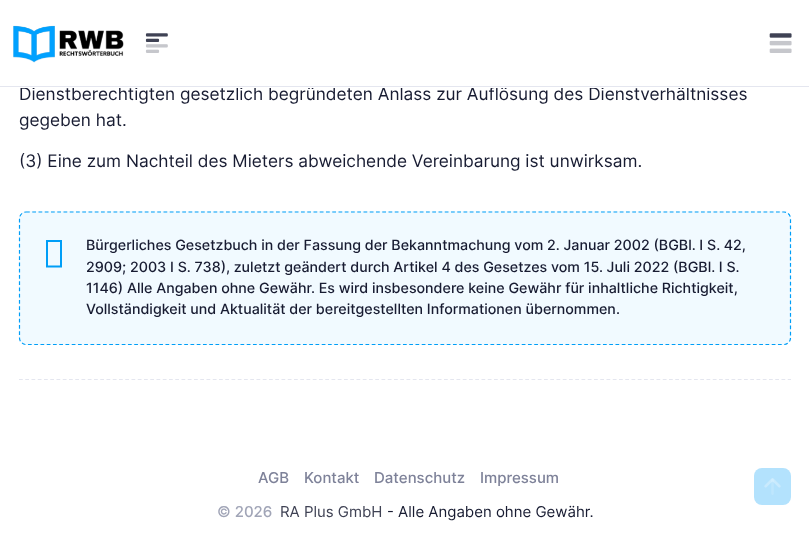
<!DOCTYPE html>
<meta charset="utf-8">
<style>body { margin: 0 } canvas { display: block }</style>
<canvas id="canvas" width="809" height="542"></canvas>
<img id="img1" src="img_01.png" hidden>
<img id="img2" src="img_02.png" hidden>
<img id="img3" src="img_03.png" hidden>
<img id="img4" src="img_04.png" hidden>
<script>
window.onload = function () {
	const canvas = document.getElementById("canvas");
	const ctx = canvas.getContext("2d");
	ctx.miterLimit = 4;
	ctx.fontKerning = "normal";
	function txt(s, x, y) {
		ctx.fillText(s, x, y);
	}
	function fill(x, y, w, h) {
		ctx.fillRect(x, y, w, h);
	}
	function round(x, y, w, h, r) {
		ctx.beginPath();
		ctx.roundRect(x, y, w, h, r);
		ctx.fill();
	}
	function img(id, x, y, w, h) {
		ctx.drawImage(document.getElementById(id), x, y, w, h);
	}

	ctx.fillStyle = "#FFFFFF";
	fill(0, 0, 809, 542);
	img("img1", 13, 25, 111, 38);
	img("img2", 145, 33, 23, 20);
	img("img3", 769, 33, 23, 20);
	ctx.fillStyle = "#F1FAFF";
	round(19, 211, 772, 134, 8);
	ctx.beginPath();
	ctx.moveTo(26, 212);
	ctx.lineTo(784, 212);
	ctx.bezierCurveTo(787.5, 212, 790.5, 215, 790.5, 218.5);
	ctx.lineTo(790.5, 338);
	ctx.bezierCurveTo(790.5, 341.5, 787.5, 344.5, 784, 344.5);
	ctx.lineTo(26, 344.5);
	ctx.bezierCurveTo(22.5, 344.5, 19.5, 341.5, 19.5, 338);
	ctx.lineTo(19.5, 218.5);
	ctx.bezierCurveTo(19.5, 215, 22.5, 212, 26, 212);
	ctx.closePath();
	ctx.strokeStyle = "#009EF7";
	ctx.lineWidth = 1.2;
	ctx.setLineDash([3.75, 2.5]);
	ctx.stroke();
	ctx.fillStyle = "#009EF7";
	ctx.beginPath();
	ctx.moveTo(46, 267.5);
	ctx.lineTo(46, 240);
	ctx.lineTo(62, 240);
	ctx.lineTo(62, 267.5);
	ctx.closePath();
	ctx.moveTo(48, 265.5);
	ctx.lineTo(60, 265.5);
	ctx.lineTo(60, 242);
	ctx.lineTo(48, 242);
	ctx.closePath();
	ctx.fill();
	ctx.beginPath();
	ctx.moveTo(19, 379.5);
	ctx.lineTo(791, 379.5);
	ctx.strokeStyle = "#E4E6EF";
	ctx.stroke();
	ctx.fillStyle = "#B3E2FD";
	round(754, 468, 37, 37, 8);
	img("img4", 764, 478, 17, 17);
	ctx.font = "17.25px Inter";
	ctx.fillStyle = "#181C32";
	txt("Dienstberechtigten gesetzlich begründeten Anlass zur Auflösung des Dienstverhältnisses", 19, 100);
	ctx.fillStyle = "#FFFFFF";
	fill(20, 86, 690, 2);
	ctx.fillStyle = "#E4E6EF";
	fill(0, 86, 809, 1);
	ctx.fillStyle = "#181C32";
	txt("gegeben hat.", 19, 126);
	txt("(3) Eine zum Nachteil des Mieters abweichende Vereinbarung ist unwirksam.", 19, 167);
	ctx.font = "500 14.25px Inter";
	txt("Bürgerliches Gesetzbuch in der Fassung der Bekanntmachung vom 2. Januar 2002 (BGBl. I S. 42,", 86, 250);
	txt("2909; 2003 I S. 738), zuletzt geändert durch Artikel 4 des Gesetzes vom 15. Juli 2022 (BGBl. I S.", 86, 272);
	txt("1146) Alle Angaben ohne Gewähr. Es wird insbesondere keine Gewähr für inhaltliche Richtigkeit,", 86, 293);
	txt("Vollständigkeit und Aktualität der bereitgestellten Informationen übernommen.", 86, 314);
	ctx.font = "500 15px Inter";
	ctx.fillStyle = "#7E8299";
	txt("AGB", 258, 483);
	txt("Kontakt", 304, 483);
	txt("Datenschutz", 374, 483);
	txt("Impressum", 480, 483);
	ctx.fillStyle = "#A1A5B7";
	txt("© 2026", 217, 517);
	ctx.font = "15px Inter";
	ctx.fillStyle = "#3F4254";
	txt("RA Plus GmbH", 280, 517);
	ctx.fillStyle = "#181C32";
	txt("- Alle Angaben ohne Gewähr.", 387, 517);
};
</script>
